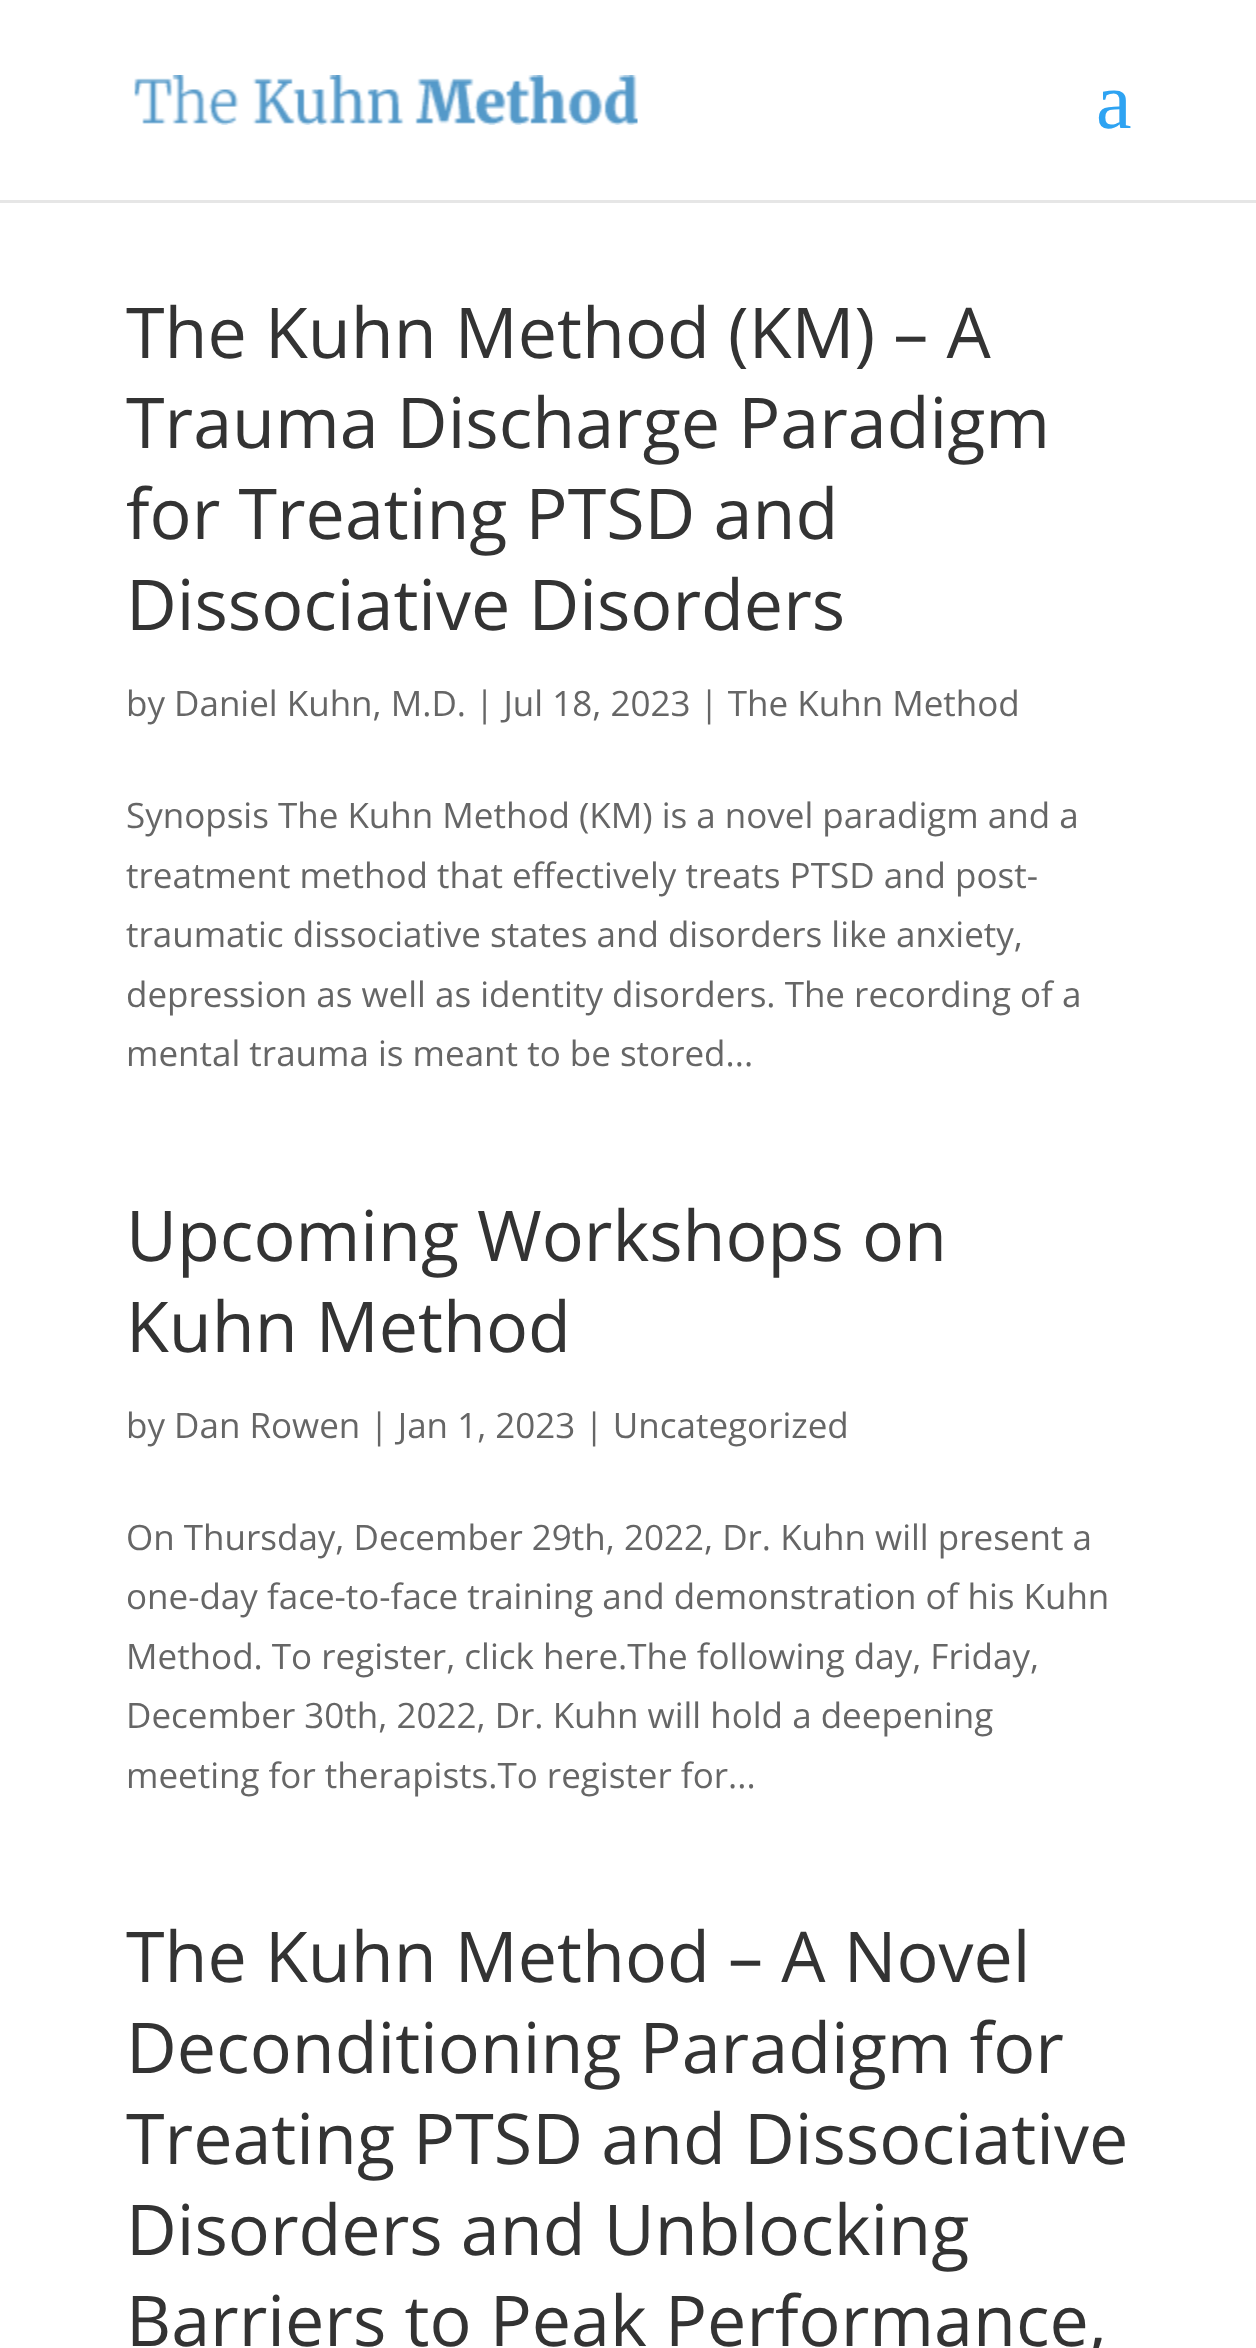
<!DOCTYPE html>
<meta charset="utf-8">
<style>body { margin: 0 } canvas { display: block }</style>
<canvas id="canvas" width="1256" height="2348"></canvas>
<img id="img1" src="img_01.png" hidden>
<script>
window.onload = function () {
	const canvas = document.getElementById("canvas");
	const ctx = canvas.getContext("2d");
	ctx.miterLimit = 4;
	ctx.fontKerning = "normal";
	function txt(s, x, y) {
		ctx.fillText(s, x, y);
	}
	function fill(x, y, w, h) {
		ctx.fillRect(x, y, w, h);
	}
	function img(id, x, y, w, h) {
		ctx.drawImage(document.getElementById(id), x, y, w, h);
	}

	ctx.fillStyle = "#FFFFFF";
	fill(0, 0, 1256, 2348);
	ctx.fillStyle = "#E6E6E6";
	ctx.beginPath();
	ctx.moveTo(0, 200);
	ctx.lineTo(0, 203);
	ctx.lineTo(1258, 203);
	ctx.lineTo(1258, 3);
	ctx.lineTo(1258, 200);
	ctx.closePath();
	ctx.fill();
	img("img1", 134, 75, 504, 50);
	ctx.font = "80px Liberation Serif";
	ctx.fillStyle = "#2EA3F2";
	txt("a", 1096, 128);
	ctx.font = "70px Open Sans";
	ctx.fillStyle = "#333333";
	txt("The Kuhn Method (KM) – A", 126, 358);
	txt("Trauma Discharge Paradigm", 126, 448);
	txt("for Treating PTSD and", 126, 539);
	txt("Dissociative Disorders", 126, 630);
	ctx.font = "35px Open Sans";
	ctx.fillStyle = "#666666";
	txt("by Daniel Kuhn, M.D. | Jul 18, 2023 | The Kuhn Method", 126, 716);
	txt("Synopsis The Kuhn Method (KM) is a novel paradigm and a", 126, 828);
	txt("treatment method that effectively treats PTSD and post-", 126, 888);
	txt("traumatic dissociative states and disorders like anxiety,", 126, 947);
	txt("depression as well as identity disorders. The recording of a", 126, 1007);
	txt("mental trauma is meant to be stored...", 126, 1066);
	ctx.font = "70px Open Sans";
	ctx.fillStyle = "#333333";
	txt("Upcoming Workshops on", 126, 1261);
	txt("Kuhn Method", 126, 1352);
	ctx.font = "35px Open Sans";
	ctx.fillStyle = "#666666";
	txt("by Dan Rowen | Jan 1, 2023 | Uncategorized", 126, 1438);
	txt("On Thursday, December 29th, 2022, Dr. Kuhn will present a", 126, 1550);
	txt("one-day face-to-face training and demonstration of his Kuhn", 126, 1609);
	txt("Method. To register, click here.The following day, Friday,", 126, 1669);
	txt("December 30th, 2022, Dr. Kuhn will hold a deepening", 126, 1728);
	txt("meeting for therapists.To register for...", 126, 1788);
	ctx.font = "70px Open Sans";
	ctx.fillStyle = "#333333";
	txt("The Kuhn Method – A Novel", 126, 1982);
	txt("Deconditioning Paradigm for", 126, 2073);
	txt("Treating PTSD and Dissociative", 126, 2164);
	txt("Disorders and Unblocking", 126, 2255);
	txt("Barriers to Peak Performance,", 126, 2346);
};
</script>
